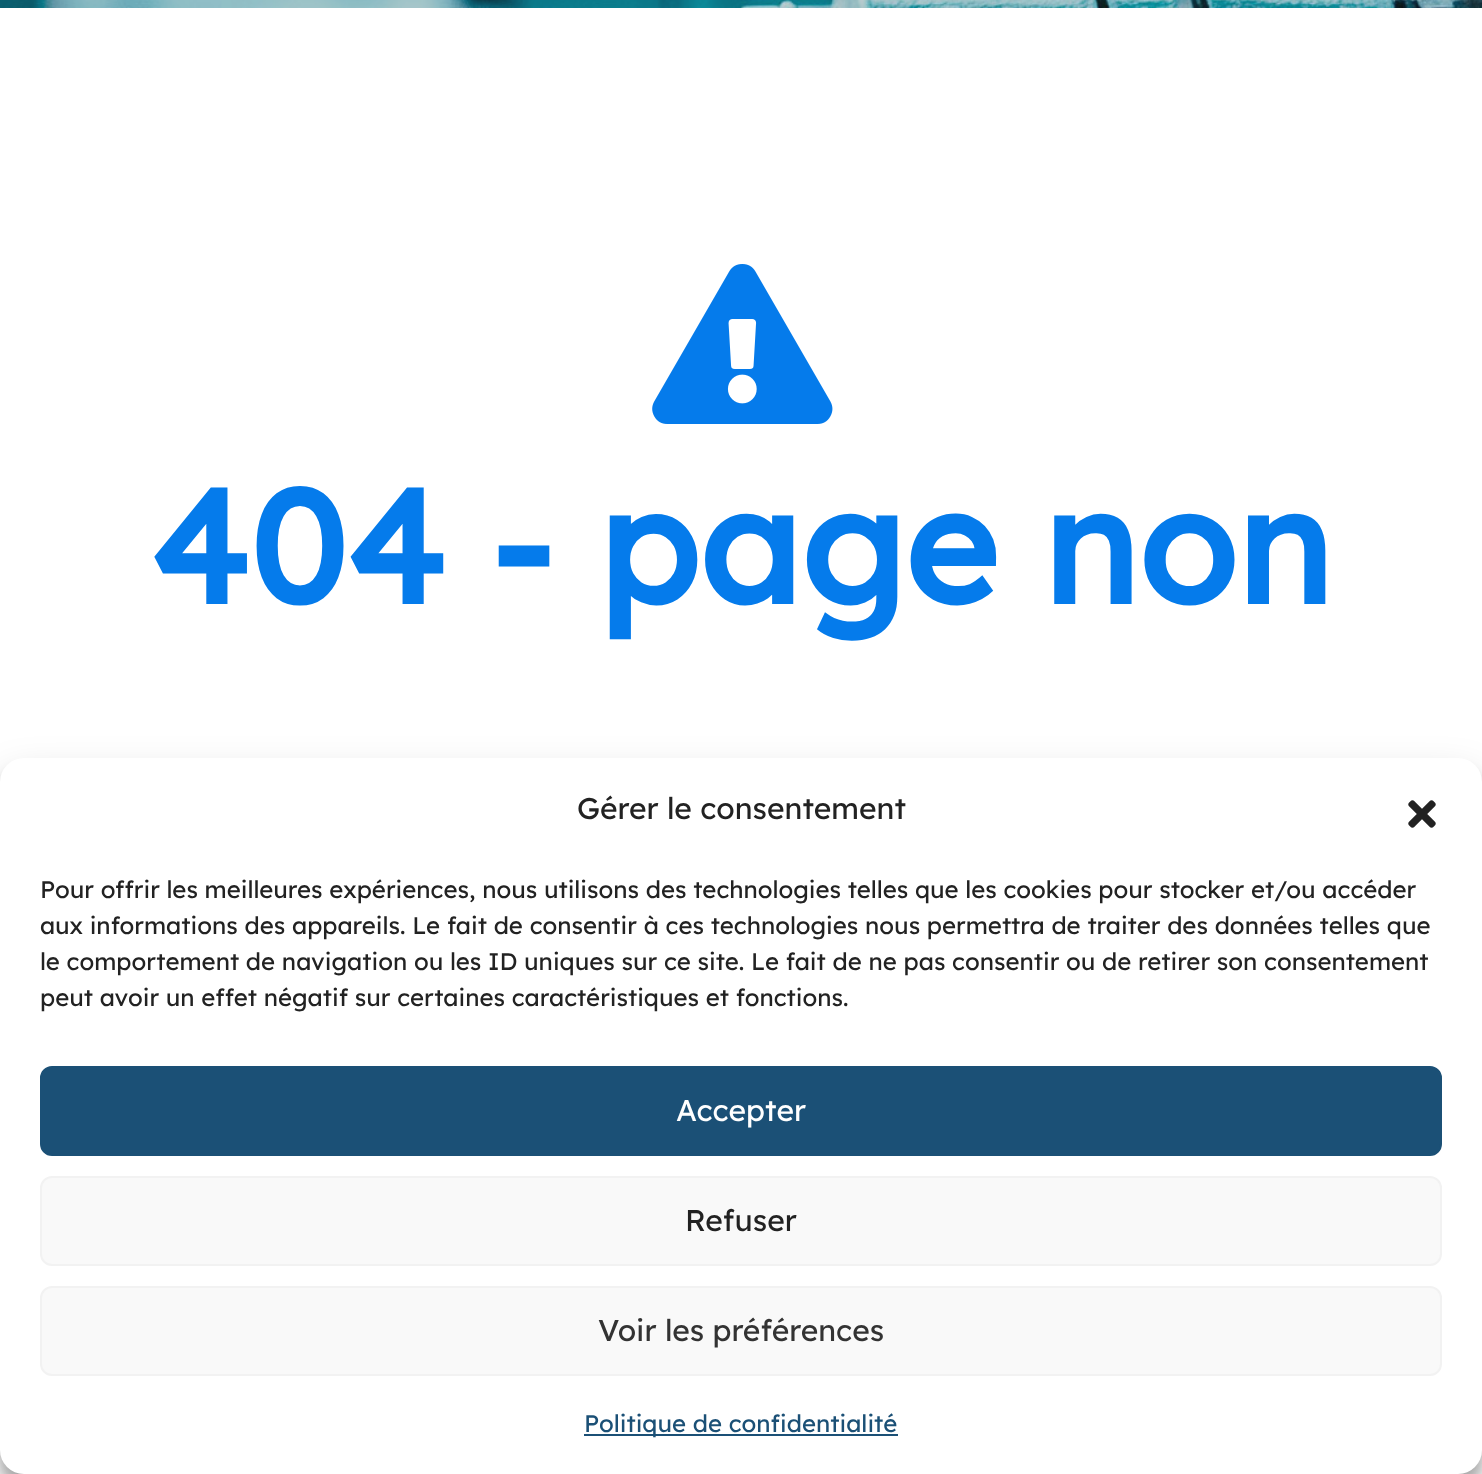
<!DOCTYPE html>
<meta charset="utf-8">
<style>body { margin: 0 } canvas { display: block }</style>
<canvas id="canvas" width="1482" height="1474"></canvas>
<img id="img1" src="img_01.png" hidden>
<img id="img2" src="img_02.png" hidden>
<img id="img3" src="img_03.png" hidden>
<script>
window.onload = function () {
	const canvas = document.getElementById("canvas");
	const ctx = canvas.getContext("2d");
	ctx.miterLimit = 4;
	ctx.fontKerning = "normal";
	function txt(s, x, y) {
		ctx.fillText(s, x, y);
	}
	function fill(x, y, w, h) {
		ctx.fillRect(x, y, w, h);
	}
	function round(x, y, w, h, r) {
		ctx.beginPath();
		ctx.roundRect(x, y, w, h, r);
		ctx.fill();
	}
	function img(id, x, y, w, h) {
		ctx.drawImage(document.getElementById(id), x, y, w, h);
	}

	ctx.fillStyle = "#FFFFFF";
	fill(0, 0, 1482, 1474);
	img("img1", 0, 0, 1482, 8);
	img("img2", 652, 264, 181, 160);
	ctx.fillStyle = "rgba(0, 0, 0, 0.23)";
	ctx.filter = "blur(6px)";
	ctx.beginPath();
	ctx.roundRect(0, 770, 1482, 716, 24);
	ctx.fill();
	ctx.filter = "none";
	ctx.fillStyle = "rgba(0, 0, 0, 0.19)";
	ctx.filter = "blur(20px)";
	ctx.beginPath();
	ctx.roundRect(0, 778, 1482, 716, 24);
	ctx.fill();
	ctx.filter = "none";
	ctx.fillStyle = "#FFFFFF";
	round(0, 758, 1482, 716, 24);
	img("img3", 1408, 800, 28, 28);
	ctx.fillStyle = "#1B5076";
	ctx.beginPath();
	ctx.roundRect(41, 1067, 1400, 88, 11);
	ctx.fill();
	ctx.strokeStyle = "#1B5076";
	ctx.lineWidth = 2;
	ctx.stroke();
	ctx.fillStyle = "#F9F9F9";
	ctx.beginPath();
	ctx.roundRect(41, 1177, 1400, 88, 11);
	ctx.fill();
	ctx.strokeStyle = "#F2F2F2";
	ctx.stroke();
	ctx.beginPath();
	ctx.roundRect(41, 1287, 1400, 88, 11);
	ctx.fill();
	ctx.stroke();
	ctx.fillStyle = "#1B5076";
	fill(584, 1434, 314, 2);
	ctx.font = "bold 160px Lexend Deca";
	ctx.fillStyle = "#057BEB";
	txt("404 - page non", 150, 604);
	ctx.font = "30px Lexend Deca";
	ctx.fillStyle = "#222222";
	txt("Gérer le consentement", 577, 819);
	ctx.font = "24px Lexend Deca";
	txt("Pour offrir les meilleures expériences, nous utilisons des technologies telles que les cookies pour stocker et/ou accéder", 40, 898);
	txt("aux informations des appareils. Le fait de consentir à ces technologies nous permettra de traiter des données telles que", 40, 934);
	txt("le comportement de navigation ou les ID uniques sur ce site. Le fait de ne pas consentir ou de retirer son consentement", 40, 970);
	txt("peut avoir un effet négatif sur certaines caractéristiques et fonctions.", 40, 1006);
	ctx.font = "30px Lexend Deca";
	ctx.fillStyle = "#FFFFFF";
	txt("Accepter", 676, 1121);
	ctx.fillStyle = "#222222";
	txt("Refuser", 685, 1231);
	ctx.fillStyle = "#333333";
	txt("Voir les préférences", 598, 1341);
	ctx.font = "24px Lexend Deca";
	ctx.fillStyle = "#1B5076";
	txt("Politique de confidentialité", 584, 1432);
};
</script>
